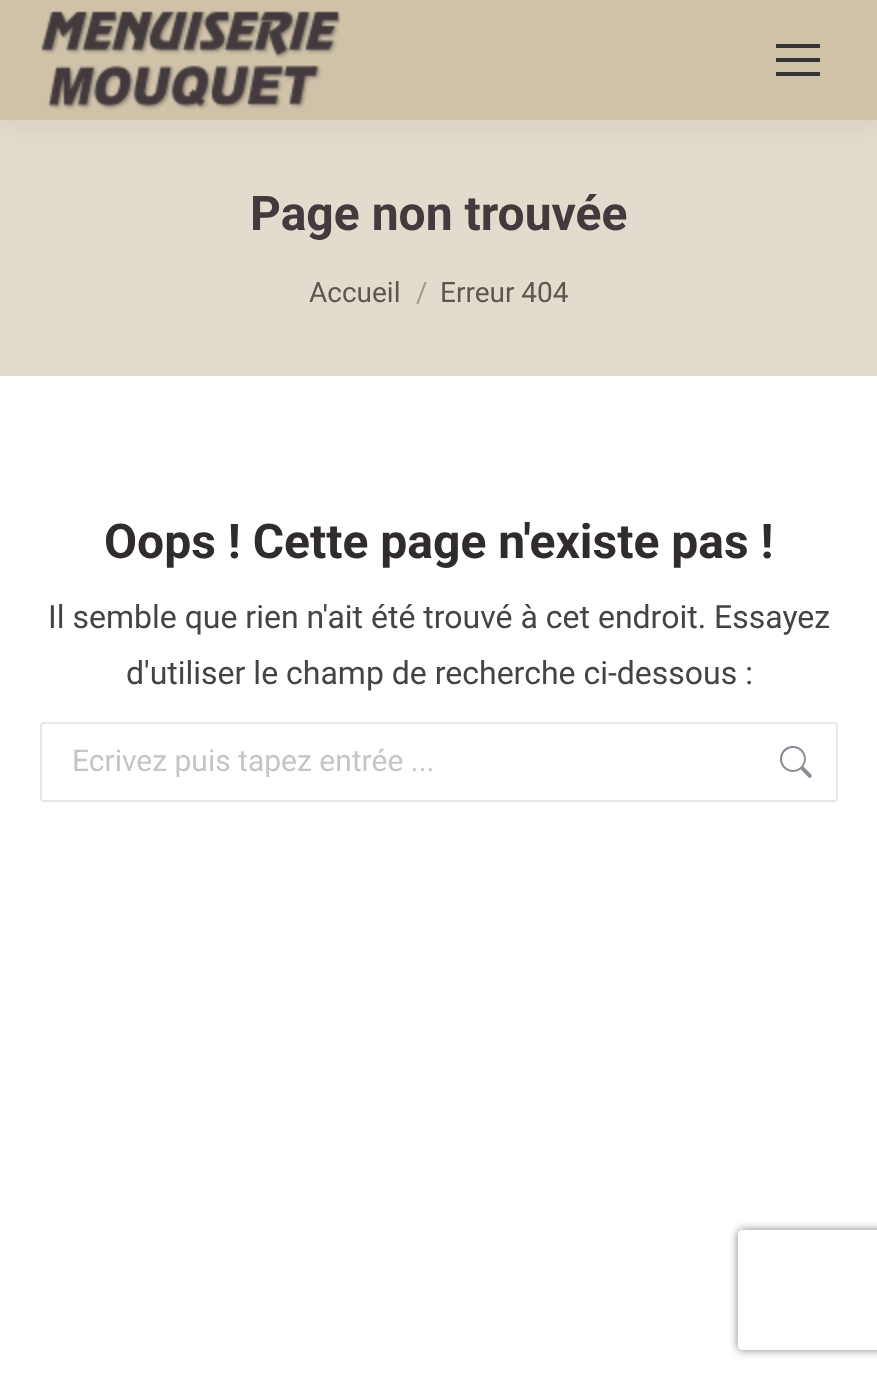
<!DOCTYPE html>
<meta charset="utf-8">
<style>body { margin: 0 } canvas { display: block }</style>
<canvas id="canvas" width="877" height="1378"></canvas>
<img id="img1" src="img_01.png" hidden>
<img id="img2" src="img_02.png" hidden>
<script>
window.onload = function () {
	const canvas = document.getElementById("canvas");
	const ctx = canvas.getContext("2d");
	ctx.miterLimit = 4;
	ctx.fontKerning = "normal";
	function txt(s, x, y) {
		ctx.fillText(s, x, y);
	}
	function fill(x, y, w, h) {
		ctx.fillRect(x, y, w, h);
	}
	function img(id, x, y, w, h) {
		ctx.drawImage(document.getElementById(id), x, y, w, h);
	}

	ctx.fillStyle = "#FFFFFF";
	fill(0, 0, 877, 1378);
	ctx.fillStyle = "#E3DBCD";
	fill(0, 120, 877, 256);
	ctx.fillStyle = "rgba(0, 0, 0, 0.07)";
	ctx.filter = "blur(15px)";
	ctx.beginPath();
	ctx.rect(-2, -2, 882, 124);
	ctx.fill();
	ctx.filter = "none";
	ctx.fillStyle = "#CFC2A9";
	fill(0, 0, 877, 120);
	img("img1", 41, 11, 299, 99);
	ctx.fillStyle = "#333333";
	fill(776, 44, 44, 4);
	fill(776, 58, 44, 4);
	fill(776, 72, 44, 4);
	ctx.beginPath();
	ctx.roundRect(41, 723, 796, 78, 3);
	ctx.strokeStyle = "#E7E7E7";
	ctx.lineWidth = 2;
	ctx.stroke();
	img("img2", 780, 746, 32, 32);
	ctx.save();
	ctx.beginPath();
	ctx.moveTo(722, 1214);
	ctx.lineTo(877, 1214);
	ctx.lineTo(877, 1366);
	ctx.lineTo(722, 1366);
	ctx.closePath();
	ctx.moveTo(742, 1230);
	ctx.lineTo(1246, 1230);
	ctx.bezierCurveTo(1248, 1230, 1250, 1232, 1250, 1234);
	ctx.lineTo(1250, 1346);
	ctx.bezierCurveTo(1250, 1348, 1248, 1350, 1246, 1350);
	ctx.lineTo(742, 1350);
	ctx.bezierCurveTo(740, 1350, 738, 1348, 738, 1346);
	ctx.lineTo(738, 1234);
	ctx.bezierCurveTo(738, 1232, 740, 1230, 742, 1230);
	ctx.closePath();
	ctx.clip("evenodd");
	ctx.fillStyle = "#808080";
	ctx.filter = "blur(5px)";
	ctx.beginPath();
	ctx.roundRect(738, 1230, 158, 120, 4);
	ctx.fill();
	ctx.filter = "none";
	ctx.restore();
	ctx.font = "bold 48px Roboto";
	ctx.fillStyle = "#433A3D";
	txt("Page non trouvée", 250, 230);
	ctx.font = "28px Roboto";
	ctx.fillStyle = "#5E584C";
	txt("Accueil", 309, 302);
	ctx.fillStyle = "#A19A8D";
	txt("/", 416, 302);
	ctx.fillStyle = "#5E584C";
	txt("Erreur 404", 440, 302);
	ctx.font = "bold 48px Roboto";
	ctx.fillStyle = "#302C2B";
	txt("Oops ! Cette page n'existe pas !", 104, 558);
	ctx.font = "32px Roboto";
	ctx.fillStyle = "#444444";
	txt("Il semble que rien n'ait été trouvé à cet endroit. Essayez", 48, 628);
	txt("d'utiliser le champ de recherche ci-dessous :", 126, 684);
	ctx.font = "30px Roboto";
	ctx.fillStyle = "#C4C5C9";
	txt("Ecrivez puis tapez entrée ...", 72, 771);
};
</script>
